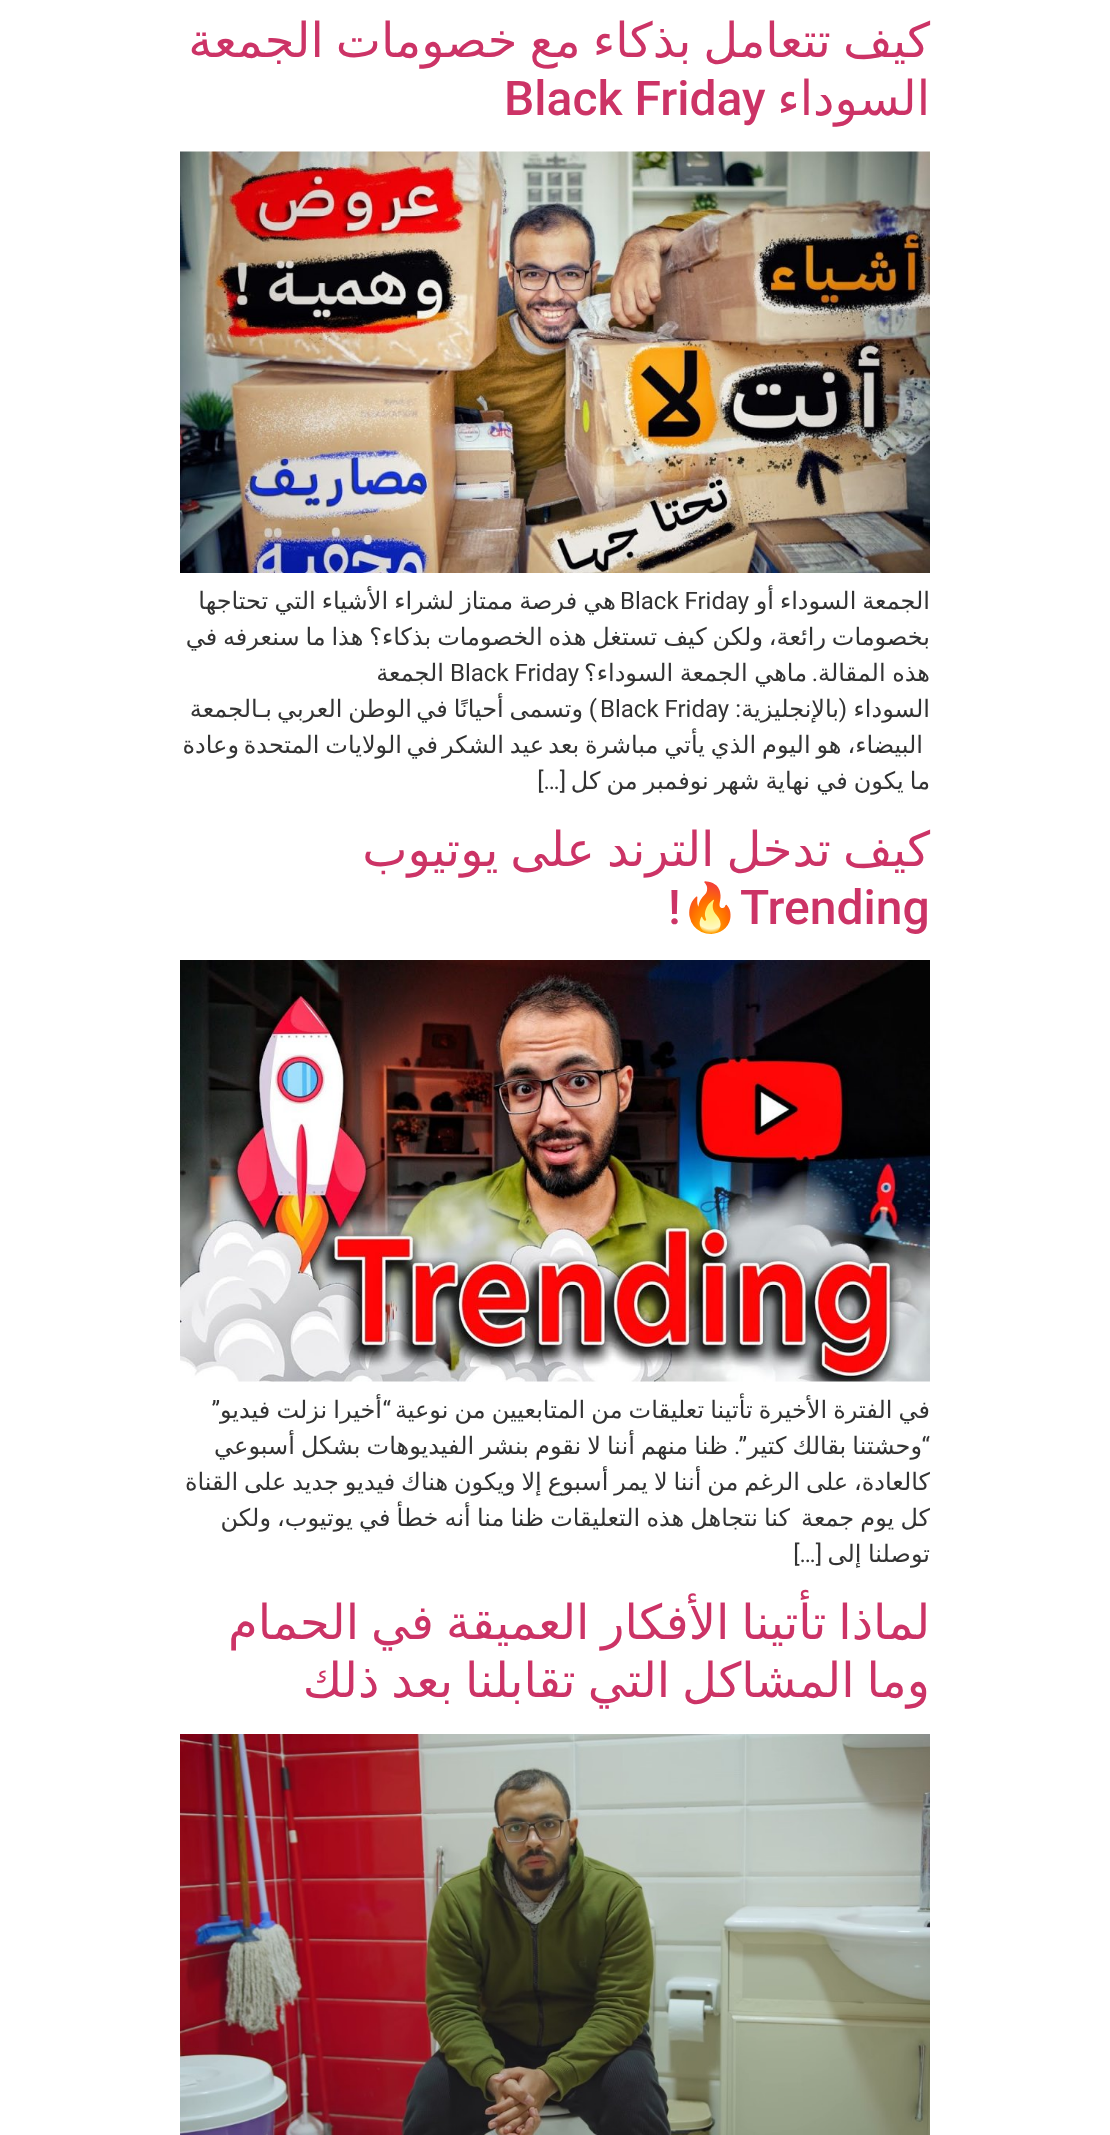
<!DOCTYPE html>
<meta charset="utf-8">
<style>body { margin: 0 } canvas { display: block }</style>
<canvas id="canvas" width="1110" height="2135"></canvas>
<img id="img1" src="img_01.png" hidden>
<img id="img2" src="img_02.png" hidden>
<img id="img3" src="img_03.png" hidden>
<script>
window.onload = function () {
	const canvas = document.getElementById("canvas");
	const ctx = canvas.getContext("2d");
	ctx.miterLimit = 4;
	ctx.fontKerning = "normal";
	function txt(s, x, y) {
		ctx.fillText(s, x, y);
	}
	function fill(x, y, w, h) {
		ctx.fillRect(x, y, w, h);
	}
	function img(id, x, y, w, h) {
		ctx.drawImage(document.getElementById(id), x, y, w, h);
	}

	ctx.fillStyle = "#FFFFFF";
	fill(0, 0, 1110, 2135);
	img("img1", 180, 151, 750, 422);
	img("img2", 180, 960, 750, 422);
	img("img3", 180, 1734, 750, 401);
	ctx.wordSpacing = "-3.25px";
	ctx.direction = "rtl";
	ctx.font = "48px DejaVu Sans";
	ctx.fillStyle = "#CC3366";
	txt("كيف تتعامل بذكاء مع خصومات الجمعة", 930, 57);
	ctx.wordSpacing = "0px";
	txt("السوداء", 930, 115);
	ctx.direction = "ltr";
	ctx.font = "500 48px Roboto";
	txt("Black Friday", 504, 115);
	ctx.wordSpacing = "-1.75px";
	ctx.direction = "rtl";
	ctx.font = "24px DejaVu Sans";
	ctx.fillStyle = "#333333";
	txt("الجمعة السوداء أو", 930, 609);
	ctx.wordSpacing = "-1.5px";
	txt("هي فرصة ممتاز لشراء الأشياء التي تحتاجها", 616, 609);
	ctx.wordSpacing = "0px";
	ctx.direction = "ltr";
	ctx.font = "24px Roboto";
	txt("Black Friday", 620, 609);
	ctx.wordSpacing = "-1.75px";
	ctx.direction = "rtl";
	ctx.font = "24px DejaVu Sans";
	txt("بخصومات رائعة، ولكن كيف تستغل هذه الخصومات بذكاء؟ هذا ما سنعرفه في", 930, 645);
	ctx.wordSpacing = "-1px";
	txt("هذه المقالة", 930, 681);
	ctx.wordSpacing = "0px";
	ctx.font = "24px Roboto";
	txt(".", 818, 681);
	ctx.wordSpacing = "-1px";
	ctx.font = "24px DejaVu Sans";
	txt("ماهي الجمعة السوداء؟", 807, 681);
	ctx.wordSpacing = "0px";
	ctx.direction = "ltr";
	ctx.font = "24px Roboto";
	txt("Black Friday", 450, 681);
	ctx.direction = "rtl";
	ctx.font = "24px DejaVu Sans";
	txt("الجمعة", 444, 681);
	txt("السوداء", 930, 717);
	ctx.font = "24px Roboto";
	txt("(", 847, 717);
	ctx.font = "24px DejaVu Sans";
	txt("بالإنجليزية", 839, 717);
	ctx.font = "24px Roboto";
	txt(":", 741, 717);
	ctx.direction = "ltr";
	txt("Black Friday", 600, 717);
	ctx.direction = "rtl";
	txt(")", 597, 717);
	ctx.wordSpacing = "-1.75px";
	ctx.font = "24px DejaVu Sans";
	txt(" وتسمى أحيانًا في", 589, 717);
	txt("الوطن العربي", 412, 717);
	ctx.wordSpacing = "0px";
	txt("بـالجمعة", 272, 717);
	ctx.wordSpacing = "-1.75px";
	txt("البيضاء، هو اليوم الذي يأتي مباشرة بعد", 923, 753);
	txt("عيد الشكر", 544, 753);
	ctx.wordSpacing = "0px";
	txt("في", 438, 753);
	ctx.wordSpacing = "-1.75px";
	txt("الولايات المتحدة", 402, 753);
	ctx.wordSpacing = "0px";
	txt("وعادة", 239, 753);
	ctx.wordSpacing = "-1.5px";
	txt("ما يكون في نهاية شهر نوفمبر من كل", 930, 789);
	ctx.wordSpacing = "0px";
	ctx.font = "24px Roboto";
	txt("[…]", 566, 789);
	ctx.wordSpacing = "-3.25px";
	ctx.font = "48px DejaVu Sans";
	ctx.fillStyle = "#CC3366";
	txt("كيف تدخل الترند على يوتيوب", 930, 866);
	ctx.wordSpacing = "0px";
	ctx.direction = "ltr";
	ctx.font = "500 48px Roboto";
	txt("Trending", 740, 924);
	ctx.font = "48px Noto Color Emoji";
	txt("🔥", 680, 924);
	ctx.font = "500 48px Roboto";
	txt("!", 668, 924);
	ctx.wordSpacing = "-1.5px";
	ctx.direction = "rtl";
	ctx.font = "24px DejaVu Sans";
	ctx.fillStyle = "#333333";
	txt("في الفترة الأخيرة تأتينا تعليقات من المتابعيين من نوعية", 930, 1418);
	ctx.wordSpacing = "0px";
	ctx.font = "24px Roboto";
	txt("”", 220, 1418);
	ctx.wordSpacing = "-1.5px";
	ctx.font = "24px DejaVu Sans";
	txt("أخيرا نزلت فيديو", 382, 1418);
	ctx.wordSpacing = "0px";
	ctx.font = "24px Roboto";
	txt("“", 391, 1418);
	ctx.wordSpacing = "-1.5px";
	ctx.font = "24px DejaVu Sans";
	txt("وحشتنا بقالك كتير", 922, 1454);
	ctx.wordSpacing = "0px";
	ctx.font = "24px Roboto";
	txt("“", 930, 1454);
	ctx.wordSpacing = "-1.5px";
	ctx.font = "24px DejaVu Sans";
	txt("ظنا منهم أننا لا نقوم بنشر الفيديوهات بشكل أسبوعي", 728, 1454);
	ctx.wordSpacing = "0px";
	ctx.font = "24px Roboto";
	txt("”.", 747, 1454);
	ctx.wordSpacing = "-1.75px";
	ctx.font = "24px DejaVu Sans";
	txt("كالعادة، على الرغم من أننا لا يمر أسبوع إلا ويكون هناك فيديو جديد على القناة", 930, 1490);
	ctx.wordSpacing = "-1.5px";
	txt("كل يوم جمعة", 930, 1526);
	txt("كنا نتجاهل هذه التعليقات ظنا منا أنه خطأ في يوتيوب، ولكن", 790, 1526);
	ctx.wordSpacing = "-1px";
	txt("توصلنا إلى", 930, 1562);
	ctx.wordSpacing = "0px";
	ctx.font = "24px Roboto";
	txt("[…]", 822, 1562);
	ctx.wordSpacing = "-3.25px";
	ctx.font = "48px DejaVu Sans";
	ctx.fillStyle = "#CC3366";
	txt("لماذا تأتينا الأفكار العميقة في الحمام", 930, 1639);
	txt("وما المشاكل التي تقابلنا بعد ذلك", 930, 1697);
};
</script>
